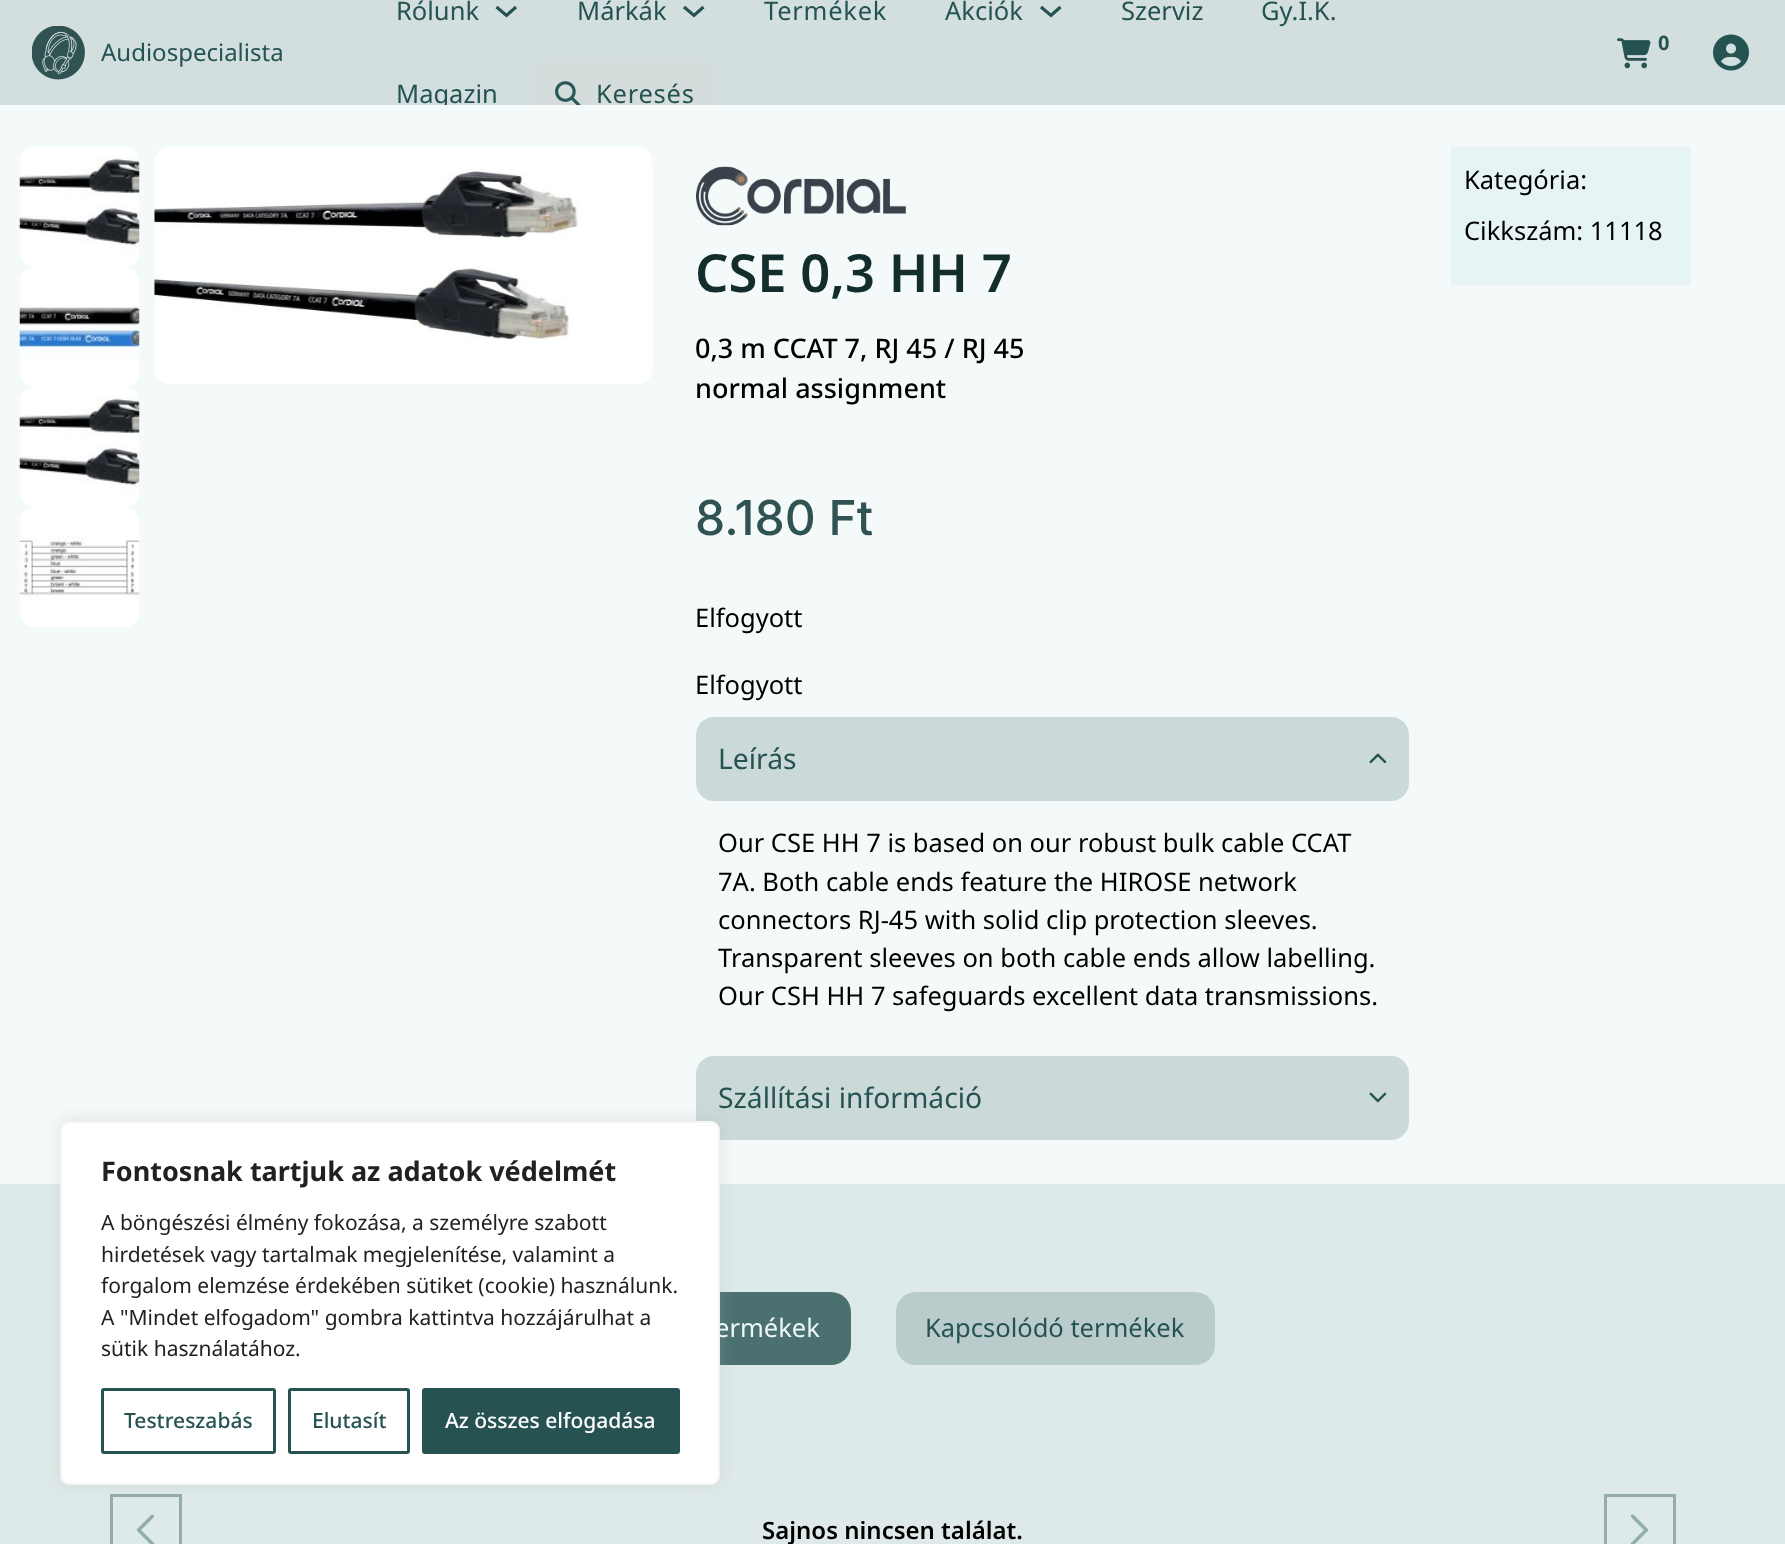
<!DOCTYPE html>
<meta charset="utf-8">
<style>body { margin: 0 } canvas { display: block }</style>
<canvas id="canvas" width="1785" height="1544"></canvas>
<img id="img1" src="img_01.png" hidden>
<img id="img2" src="img_02.png" hidden>
<img id="img3" src="img_03.png" hidden>
<img id="img4" src="img_04.png" hidden>
<img id="img5" src="img_13.png" hidden>
<img id="img6" src="img_14.png" hidden>
<img id="img7" src="img_05.png" hidden>
<img id="img8" src="img_06.png" hidden>
<img id="img9" src="img_07.png" hidden>
<img id="img10" src="img_08.png" hidden>
<img id="img11" src="img_09.png" hidden>
<img id="img12" src="img_10.png" hidden>
<img id="img13" src="img_11.png" hidden>
<img id="img14" src="img_12.png" hidden>
<script>
window.onload = function () {
	const canvas = document.getElementById("canvas");
	const ctx = canvas.getContext("2d");
	ctx.miterLimit = 4;
	ctx.fontKerning = "normal";
	function txt(s, x, y) {
		ctx.fillText(s, x, y);
	}
	function fill(x, y, w, h) {
		ctx.fillRect(x, y, w, h);
	}
	function round(x, y, w, h, r) {
		ctx.beginPath();
		ctx.roundRect(x, y, w, h, r);
		ctx.fill();
	}
	function img(id, x, y, w, h) {
		ctx.drawImage(document.getElementById(id), x, y, w, h);
	}

	ctx.fillStyle = "#D2DFDE";
	fill(0, 0, 1785, 1544);
	img("img1", 32, 26, 53, 54);
	ctx.beginPath();
	ctx.moveTo(496.5, 7);
	ctx.lineTo(506.5, 15.5);
	ctx.lineTo(516, 7);
	ctx.strokeStyle = "#255353";
	ctx.lineWidth = 3.2;
	ctx.stroke();
	ctx.beginPath();
	ctx.moveTo(684, 7);
	ctx.lineTo(694, 15.5);
	ctx.lineTo(703.5, 7);
	ctx.stroke();
	ctx.beginPath();
	ctx.moveTo(1041, 7);
	ctx.lineTo(1051, 15.5);
	ctx.lineTo(1060.5, 7);
	ctx.stroke();
	ctx.fillStyle = "#D5DDDC";
	round(536, 62, 178, 64, 11);
	img("img2", 555, 81, 26, 24);
	img("img3", 1617, 38, 34, 31);
	img("img4", 1713, 34, 36, 37);
	ctx.fillStyle = "#DEEAE9";
	fill(0, 1184, 1785, 360);
	ctx.fillStyle = "#4A7170";
	round(570, 1292, 281, 73, 20);
	ctx.fillStyle = "#B9CCCB";
	round(896, 1292, 319, 73, 20);
	ctx.strokeStyle = "#94ADAC";
	ctx.lineWidth = 3;
	ctx.strokeRect(111.5, 1495.5, 69, 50);
	img("img5", 136, 1514, 19, 30);
	ctx.strokeRect(1605.5, 1495.5, 69, 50);
	img("img6", 1630, 1514, 19, 30);
	ctx.font = "24px Noto Sans";
	ctx.fillStyle = "#255352";
	txt("Audiospecialista", 101, 61);
	ctx.font = "25.5px Noto Sans";
	txt("Rólunk", 396, 20);
	txt("Márkák", 577, 20);
	ctx.letterSpacing = "0.75px";
	txt("Termékek", 764, 20);
	ctx.letterSpacing = "0px";
	txt("Akciók", 945, 20);
	txt("Szerviz", 1121, 20);
	txt("Gy.I.K.", 1261, 20);
	txt("Magazin", 396, 103);
	ctx.letterSpacing = "0.75px";
	txt("Keresés", 596, 103);
	ctx.letterSpacing = "0px";
	ctx.font = "bold 20px Noto Sans";
	txt("0", 1658, 50);
	ctx.fillStyle = "#F4FAFA";
	fill(0, 105, 1785, 1079);
	img("img7", 19, 147, 121, 120);
	img("img8", 19, 267, 121, 120);
	img("img9", 19, 387, 121, 120);
	img("img10", 19, 507, 121, 120);
	img("img11", 154, 147, 499, 237);
	ctx.fillStyle = "#E7F4F4";
	fill(1451, 147, 240, 138);
	ctx.font = "25.5px Noto Sans";
	ctx.fillStyle = "#000000";
	txt("Kategória:", 1464, 189);
	txt("Cikkszám: 11118", 1464, 240);
	img("img12", 696, 166, 210, 60);
	ctx.font = "600 52.5px Noto Sans";
	ctx.fillStyle = "#132D2C";
	txt("CSE 0,3 HH 7", 695, 292);
	ctx.font = "500 27px Noto Sans";
	ctx.fillStyle = "#000000";
	txt("0,3 m CCAT 7, RJ 45 / RJ 45", 695, 358);
	txt("normal assignment", 695, 398);
	ctx.font = "500 48px Inter";
	ctx.fillStyle = "#305252";
	txt("8.180 Ft", 695, 535);
	ctx.font = "25.5px Noto Sans";
	ctx.fillStyle = "#000000";
	txt("Elfogyott", 695, 627);
	txt("Elfogyott", 695, 694);
	ctx.fillStyle = "#CBDAD9";
	round(696, 717, 713, 84, 18);
	ctx.font = "28.25px Noto Sans";
	ctx.fillStyle = "#255352";
	txt("Leírás", 718, 769);
	img("img13", 1369, 753, 18, 11);
	ctx.font = "25.5px Noto Sans";
	ctx.fillStyle = "#000000";
	txt("Our CSE HH 7 is based on our robust bulk cable CCAT", 718, 852);
	txt("7A. Both cable ends feature the HIROSE network", 718, 891);
	txt("connectors RJ-45 with solid clip protection sleeves.", 718, 929);
	txt("Transparent sleeves on both cable ends allow labelling.", 718, 967);
	txt("Our CSH HH 7 safeguards excellent data transmissions.", 718, 1005);
	ctx.fillStyle = "#CBDAD9";
	round(696, 1056, 713, 84, 18);
	ctx.fillStyle = "rgba(172, 171, 171, 0.3)";
	ctx.filter = "blur(7.5px)";
	ctx.beginPath();
	ctx.roundRect(60, 1119, 660, 365, 9);
	ctx.fill();
	ctx.filter = "none";
	ctx.font = "28.25px Noto Sans";
	ctx.fillStyle = "#255352";
	txt("Szállítási információ", 718, 1108);
	img("img14", 1369, 1092, 18, 11);
	ctx.font = "25.5px Noto Sans";
	ctx.fillStyle = "#EDF7F7";
	txt("ermékek", 715, 1337);
	ctx.fillStyle = "#FFFFFF";
	ctx.beginPath();
	ctx.roundRect(61, 1122, 658, 362, 8);
	ctx.fill();
	ctx.strokeStyle = "#F4F4F4";
	ctx.lineWidth = 2;
	ctx.stroke();
	ctx.fillStyle = "#265352";
	ctx.beginPath();
	ctx.roundRect(423.5, 1389.5, 255, 63, 1.5);
	ctx.fill();
	ctx.strokeStyle = "#265352";
	ctx.lineWidth = 3;
	ctx.stroke();
	ctx.font = "500 21px Noto Sans";
	ctx.fillStyle = "#FFFFFF";
	txt("Az összes elfogadása", 445, 1428);
	ctx.beginPath();
	ctx.roundRect(289.5, 1389.5, 119, 63, 1.5);
	ctx.stroke();
	ctx.fillStyle = "#255352";
	txt("Elutasít", 312, 1428);
	ctx.beginPath();
	ctx.roundRect(102.5, 1389.5, 172, 63, 1.5);
	ctx.stroke();
	txt("Testreszabás", 124, 1428);
	ctx.font = "21px Noto Sans";
	ctx.fillStyle = "#212121";
	txt("sütik használatához.", 101, 1356);
	txt("A \"Mindet elfogadom\" gombra kattintva hozzájárulhat a", 101, 1325);
	txt("forgalom elemzése érdekében sütiket (cookie) használunk.", 101, 1293);
	txt("hirdetések vagy tartalmak megjelenítése, valamint a", 101, 1262);
	txt("A böngészési élmény fokozása, a személyre szabott", 101, 1230);
	ctx.font = "bold 27px Noto Sans";
	txt("Fontosnak tartjuk az adatok védelmét", 101, 1181);
	ctx.font = "25.5px Noto Sans";
	ctx.fillStyle = "#255352";
	txt("Kapcsolódó termékek", 925, 1337);
	ctx.font = "600 24px Noto Sans";
	ctx.fillStyle = "#000000";
	txt("Sajnos nincsen találat.", 762, 1539);
};
</script>
